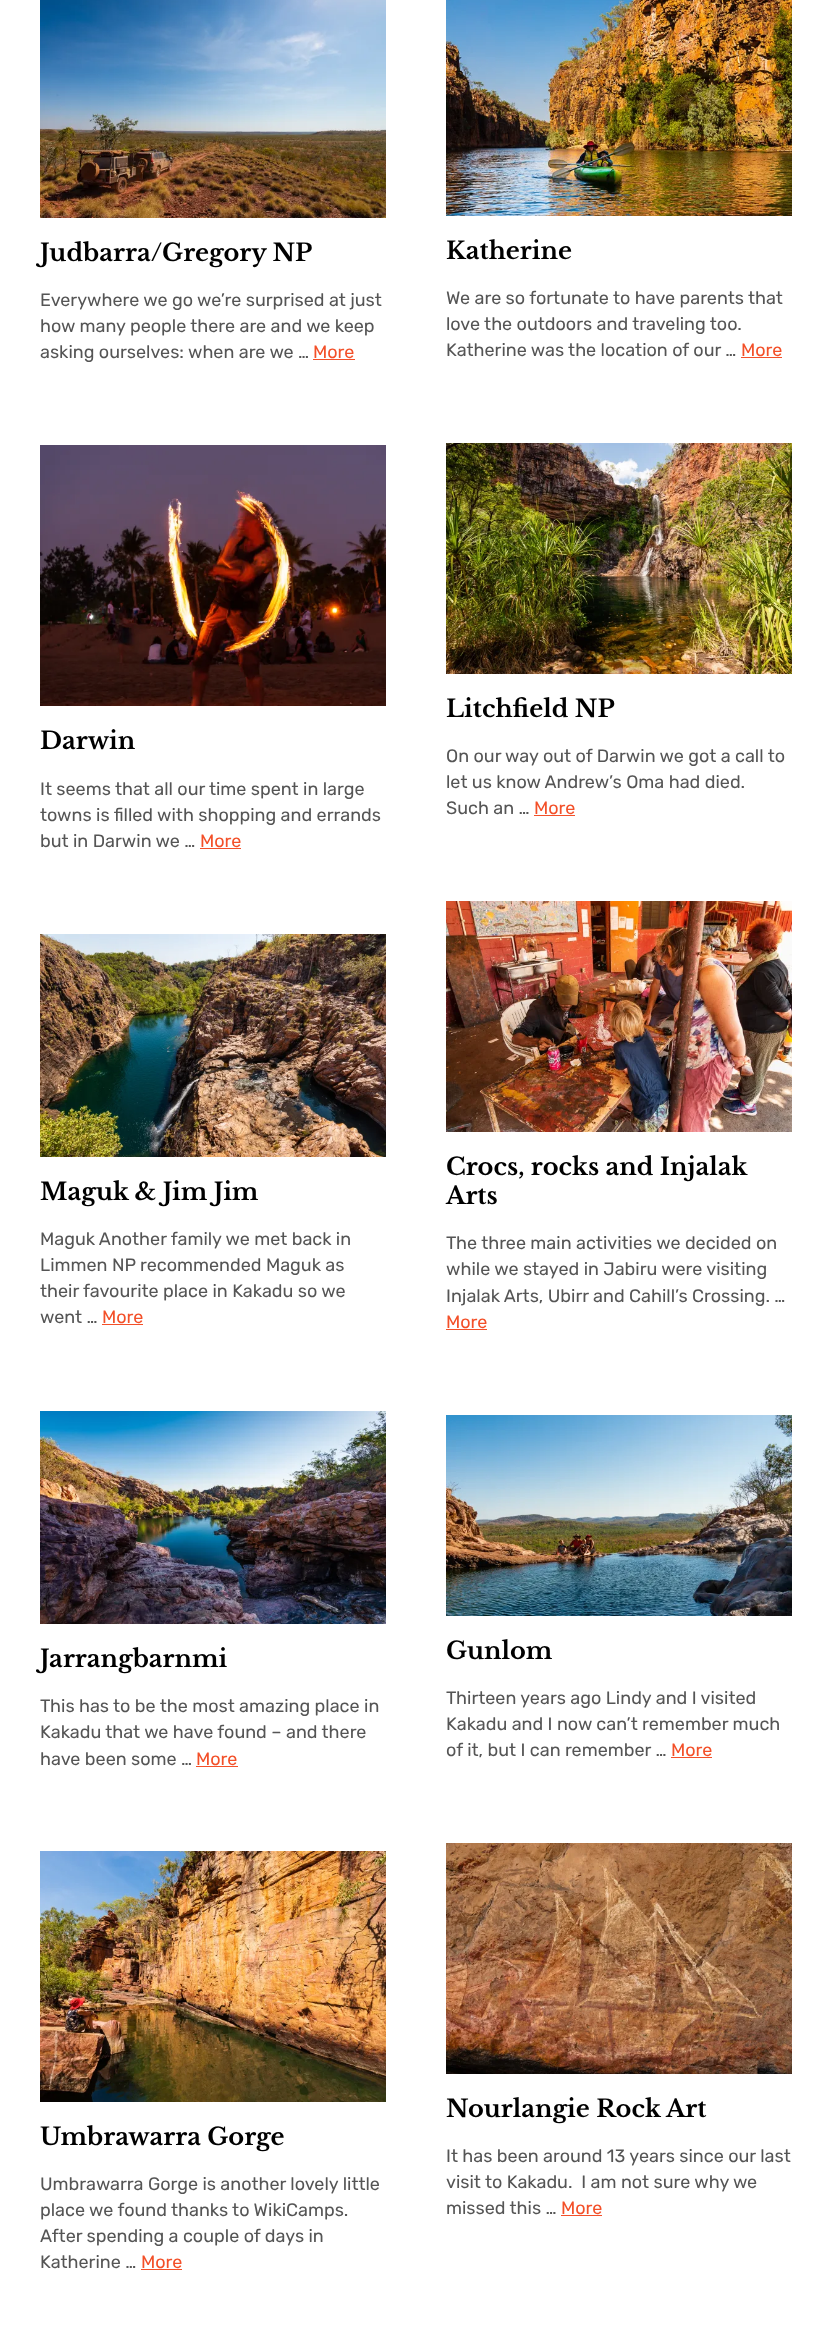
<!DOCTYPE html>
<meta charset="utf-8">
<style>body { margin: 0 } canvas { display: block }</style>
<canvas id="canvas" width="836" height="2350"></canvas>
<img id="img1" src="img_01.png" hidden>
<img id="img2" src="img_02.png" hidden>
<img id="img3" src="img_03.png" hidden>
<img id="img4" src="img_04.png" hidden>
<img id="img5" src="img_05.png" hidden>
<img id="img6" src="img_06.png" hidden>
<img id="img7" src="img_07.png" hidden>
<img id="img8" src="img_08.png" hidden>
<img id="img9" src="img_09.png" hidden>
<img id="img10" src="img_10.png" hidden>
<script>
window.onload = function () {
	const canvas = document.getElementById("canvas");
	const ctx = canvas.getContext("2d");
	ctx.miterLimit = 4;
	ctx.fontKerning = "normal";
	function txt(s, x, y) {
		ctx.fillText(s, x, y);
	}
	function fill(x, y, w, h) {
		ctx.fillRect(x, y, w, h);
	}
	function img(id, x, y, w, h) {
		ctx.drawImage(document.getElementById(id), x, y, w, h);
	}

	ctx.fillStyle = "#FFFFFF";
	fill(0, 0, 836, 2350);
	img("img1", 40, 0, 346, 218);
	ctx.fillStyle = "#F35029";
	fill(313, 359, 42, 1);
	img("img2", 446, 0, 346, 216);
	fill(741, 357, 41, 1);
	img("img3", 40, 445, 346, 261);
	fill(200, 848, 41, 1);
	img("img4", 446, 443, 346, 231);
	fill(534, 815, 41, 1);
	img("img5", 40, 934, 346, 223);
	fill(102, 1324, 41, 1);
	img("img6", 446, 901, 346, 231);
	fill(446, 1329, 41, 1);
	img("img7", 40, 1411, 346, 213);
	fill(196, 1766, 42, 1);
	img("img8", 446, 1415, 346, 201);
	fill(671, 1757, 41, 1);
	img("img9", 40, 1851, 346, 251);
	fill(141, 2269, 41, 1);
	img("img10", 446, 1843, 346, 231);
	fill(561, 2215, 41, 1);
	ctx.font = "bold 24px Libre Baskerville";
	ctx.fillStyle = "#000000";
	txt("Judbarra/Gregory NP", 40, 261);
	ctx.font = "18px Rubik";
	ctx.fillStyle = "#555555";
	txt("Everywhere we go we’re surprised at just", 40, 306);
	txt("how many people there are and we keep", 40, 332);
	txt("asking ourselves: when are we …", 40, 358);
	ctx.fillStyle = "#F35029";
	txt("More", 313, 358);
	ctx.font = "bold 24px Libre Baskerville";
	ctx.fillStyle = "#000000";
	txt("Katherine", 446, 259);
	ctx.font = "18px Rubik";
	ctx.fillStyle = "#555555";
	txt("We are so fortunate to have parents that", 446, 304);
	txt("love the outdoors and traveling too.", 446, 330);
	txt("Katherine was the location of our …", 446, 356);
	ctx.fillStyle = "#F35029";
	txt("More", 741, 356);
	ctx.font = "bold 24px Libre Baskerville";
	ctx.fillStyle = "#000000";
	txt("Darwin", 40, 749);
	ctx.font = "18px Rubik";
	ctx.fillStyle = "#555555";
	txt("It seems that all our time spent in large", 40, 795);
	txt("towns is filled with shopping and errands", 40, 821);
	txt("but in Darwin we …", 40, 847);
	ctx.fillStyle = "#F35029";
	txt("More", 200, 847);
	ctx.font = "bold 24px Libre Baskerville";
	ctx.fillStyle = "#000000";
	txt("Litchfield NP", 446, 717);
	ctx.font = "18px Rubik";
	ctx.fillStyle = "#555555";
	txt("On our way out of Darwin we got a call to", 446, 762);
	txt("let us know Andrew’s Oma had died.", 446, 788);
	txt("Such an …", 446, 814);
	ctx.fillStyle = "#F35029";
	txt("More", 534, 814);
	ctx.font = "bold 24px Libre Baskerville";
	ctx.fillStyle = "#000000";
	txt("Maguk & Jim Jim", 40, 1200);
	ctx.font = "18px Rubik";
	ctx.fillStyle = "#555555";
	txt("Maguk Another family we met back in", 40, 1245);
	txt("Limmen NP recommended Maguk as", 40, 1271);
	txt("their favourite place in Kakadu so we", 40, 1297);
	txt("went …", 40, 1323);
	ctx.fillStyle = "#F35029";
	txt("More", 102, 1323);
	ctx.font = "bold 24px Libre Baskerville";
	ctx.fillStyle = "#000000";
	txt("Crocs, rocks and Injalak", 446, 1175);
	txt("Arts", 446, 1204);
	ctx.font = "18px Rubik";
	ctx.fillStyle = "#555555";
	txt("The three main activities we decided on", 446, 1249);
	txt("while we stayed in Jabiru were visiting", 446, 1275);
	txt("Injalak Arts, Ubirr and Cahill’s Crossing. …", 446, 1302);
	ctx.fillStyle = "#F35029";
	txt("More", 446, 1328);
	ctx.font = "bold 24px Libre Baskerville";
	ctx.fillStyle = "#000000";
	txt("Jarrangbarnmi", 40, 1667);
	ctx.font = "18px Rubik";
	ctx.fillStyle = "#555555";
	txt("This has to be the most amazing place in", 40, 1712);
	txt("Kakadu that we have found – and there", 40, 1738);
	txt("have been some …", 40, 1765);
	ctx.fillStyle = "#F35029";
	txt("More", 196, 1765);
	ctx.font = "bold 24px Libre Baskerville";
	ctx.fillStyle = "#000000";
	txt("Gunlom", 446, 1659);
	ctx.font = "18px Rubik";
	ctx.fillStyle = "#555555";
	txt("Thirteen years ago Lindy and I visited", 446, 1704);
	txt("Kakadu and I now can’t remember much", 446, 1730);
	txt("of it, but I can remember …", 446, 1756);
	ctx.fillStyle = "#F35029";
	txt("More", 671, 1756);
	ctx.font = "bold 24px Libre Baskerville";
	ctx.fillStyle = "#000000";
	txt("Umbrawarra Gorge", 40, 2145);
	ctx.font = "18px Rubik";
	ctx.fillStyle = "#555555";
	txt("Umbrawarra Gorge is another lovely little", 40, 2190);
	txt("place we found thanks to WikiCamps.", 40, 2216);
	txt("After spending a couple of days in", 40, 2242);
	txt("Katherine …", 40, 2268);
	ctx.fillStyle = "#F35029";
	txt("More", 141, 2268);
	ctx.font = "bold 24px Libre Baskerville";
	ctx.fillStyle = "#000000";
	txt("Nourlangie Rock Art", 446, 2117);
	ctx.font = "18px Rubik";
	ctx.fillStyle = "#555555";
	txt("It has been around 13 years since our last", 446, 2162);
	txt("visit to Kakadu.  I am not sure why we", 446, 2188);
	txt("missed this …", 446, 2214);
	ctx.fillStyle = "#F35029";
	txt("More", 561, 2214);
};
</script>
